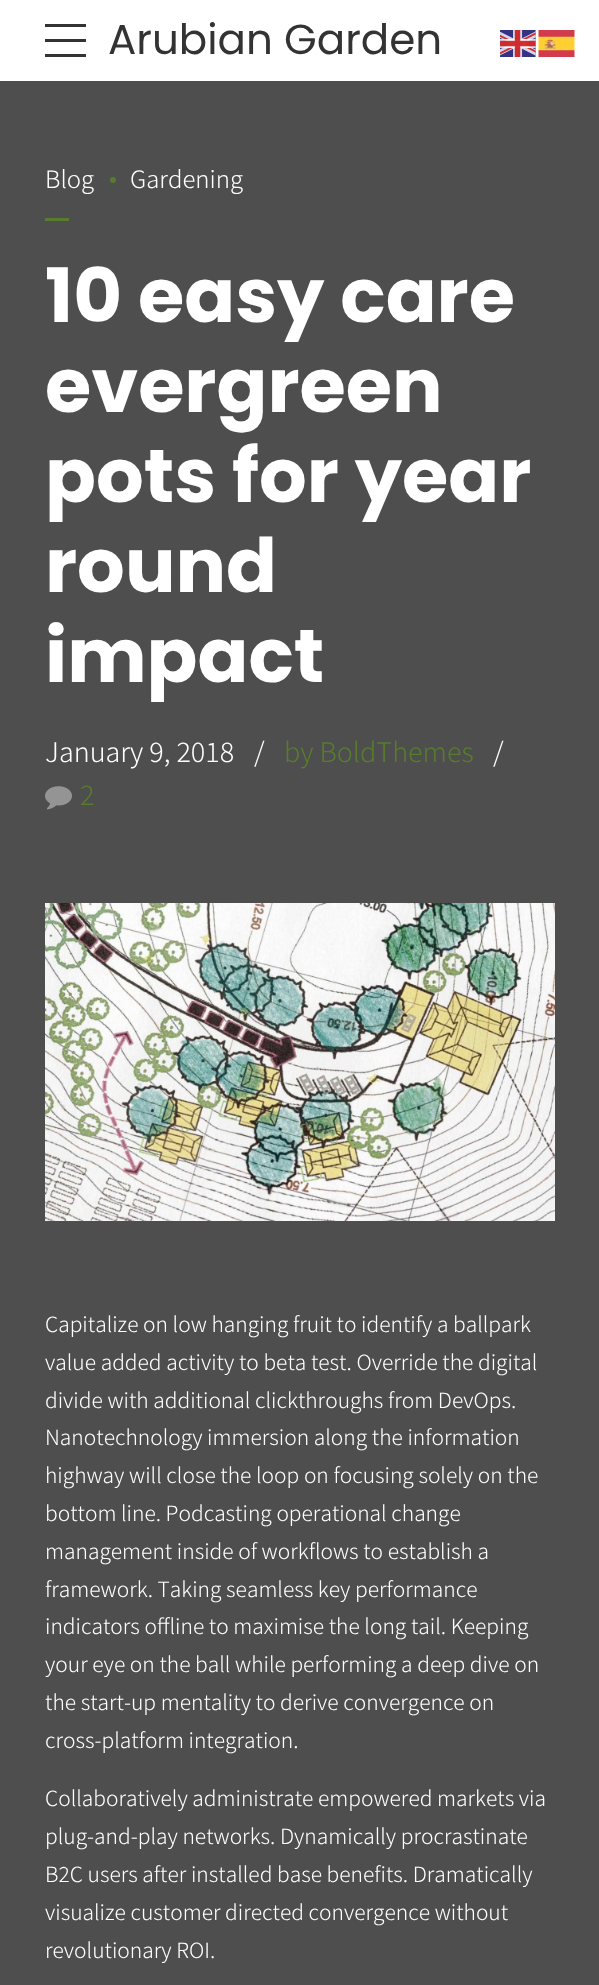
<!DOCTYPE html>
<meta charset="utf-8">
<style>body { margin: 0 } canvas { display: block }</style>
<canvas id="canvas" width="599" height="1985"></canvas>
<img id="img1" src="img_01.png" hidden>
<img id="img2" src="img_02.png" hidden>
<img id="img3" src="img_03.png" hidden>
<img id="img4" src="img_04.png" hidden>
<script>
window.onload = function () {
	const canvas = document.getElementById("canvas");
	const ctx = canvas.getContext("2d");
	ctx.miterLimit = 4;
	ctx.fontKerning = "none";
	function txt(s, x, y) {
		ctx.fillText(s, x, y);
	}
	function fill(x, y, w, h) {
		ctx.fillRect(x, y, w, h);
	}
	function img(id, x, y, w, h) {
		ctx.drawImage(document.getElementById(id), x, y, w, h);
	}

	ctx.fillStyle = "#4E4E4E";
	fill(0, 0, 599, 1985);
	ctx.fillStyle = "#FFFFFF";
	fill(0, 0, 599, 81);
	ctx.fillStyle = "#333333";
	fill(45, 24, 41, 3);
	fill(45, 39, 41, 3);
	fill(45, 54, 41, 3);
	ctx.fillStyle = "#587C2E";
	ctx.beginPath();
	ctx.arc(113, 180, 3, 0, Math.PI * 2);
	ctx.fill();
	fill(45, 218, 24, 3);
	img("img1", 45, 786, 27, 24);
	img("img2", 45, 903, 510, 318);
	img("img3", 500, 30, 36, 27);
	img("img4", 538, 30, 37, 27);
	ctx.font = "42px Poppins";
	ctx.fillStyle = "#333333";
	txt("Arubian Garden", 108, 54);
	ctx.font = "300 24px Noto Sans TC";
	ctx.fillStyle = "#FFFFFF";
	txt("Blog", 45, 188);
	txt("Gardening", 130, 188);
	ctx.font = "bold 75px Poppins";
	txt("10 easy care", 45, 322);
	txt("evergreen", 45, 412);
	txt("pots for year", 45, 502);
	txt("round", 45, 592);
	txt("impact", 45, 682);
	ctx.font = "300 27px Noto Sans TC";
	txt("January 9, 2018", 45, 762);
	txt("/", 254, 762);
	ctx.fillStyle = "#587C2E";
	txt("by BoldThemes", 284, 762);
	ctx.fillStyle = "#FFFFFF";
	txt("/", 493, 762);
	ctx.fillStyle = "#587C2E";
	txt("2", 80, 805);
	ctx.font = "300 21px Noto Sans TC";
	ctx.fillStyle = "#FFFFFF";
	txt("Capitalize on low hanging fruit to identify a ballpark", 45, 1332);
	txt("value added activity to beta test. Override the digital", 45, 1370);
	txt("divide with additional clickthroughs from DevOps.", 45, 1408);
	txt("Nanotechnology immersion along the information", 45, 1445);
	txt("highway will close the loop on focusing solely on the", 45, 1483);
	txt("bottom line. Podcasting operational change", 45, 1521);
	txt("management inside of workflows to establish a", 45, 1559);
	txt("framework. Taking seamless key performance", 45, 1597);
	txt("indicators offline to maximise the long tail. Keeping", 45, 1634);
	txt("your eye on the ball while performing a deep dive on", 45, 1672);
	txt("the start-up mentality to derive convergence on", 45, 1710);
	txt("cross-platform integration.", 45, 1748);
	txt("Collaboratively administrate empowered markets via", 45, 1806);
	txt("plug-and-play networks. Dynamically procrastinate", 45, 1844);
	txt("B2C users after installed base benefits. Dramatically", 45, 1882);
	txt("visualize customer directed convergence without", 45, 1920);
	txt("revolutionary ROI.", 45, 1958);
};
</script>
